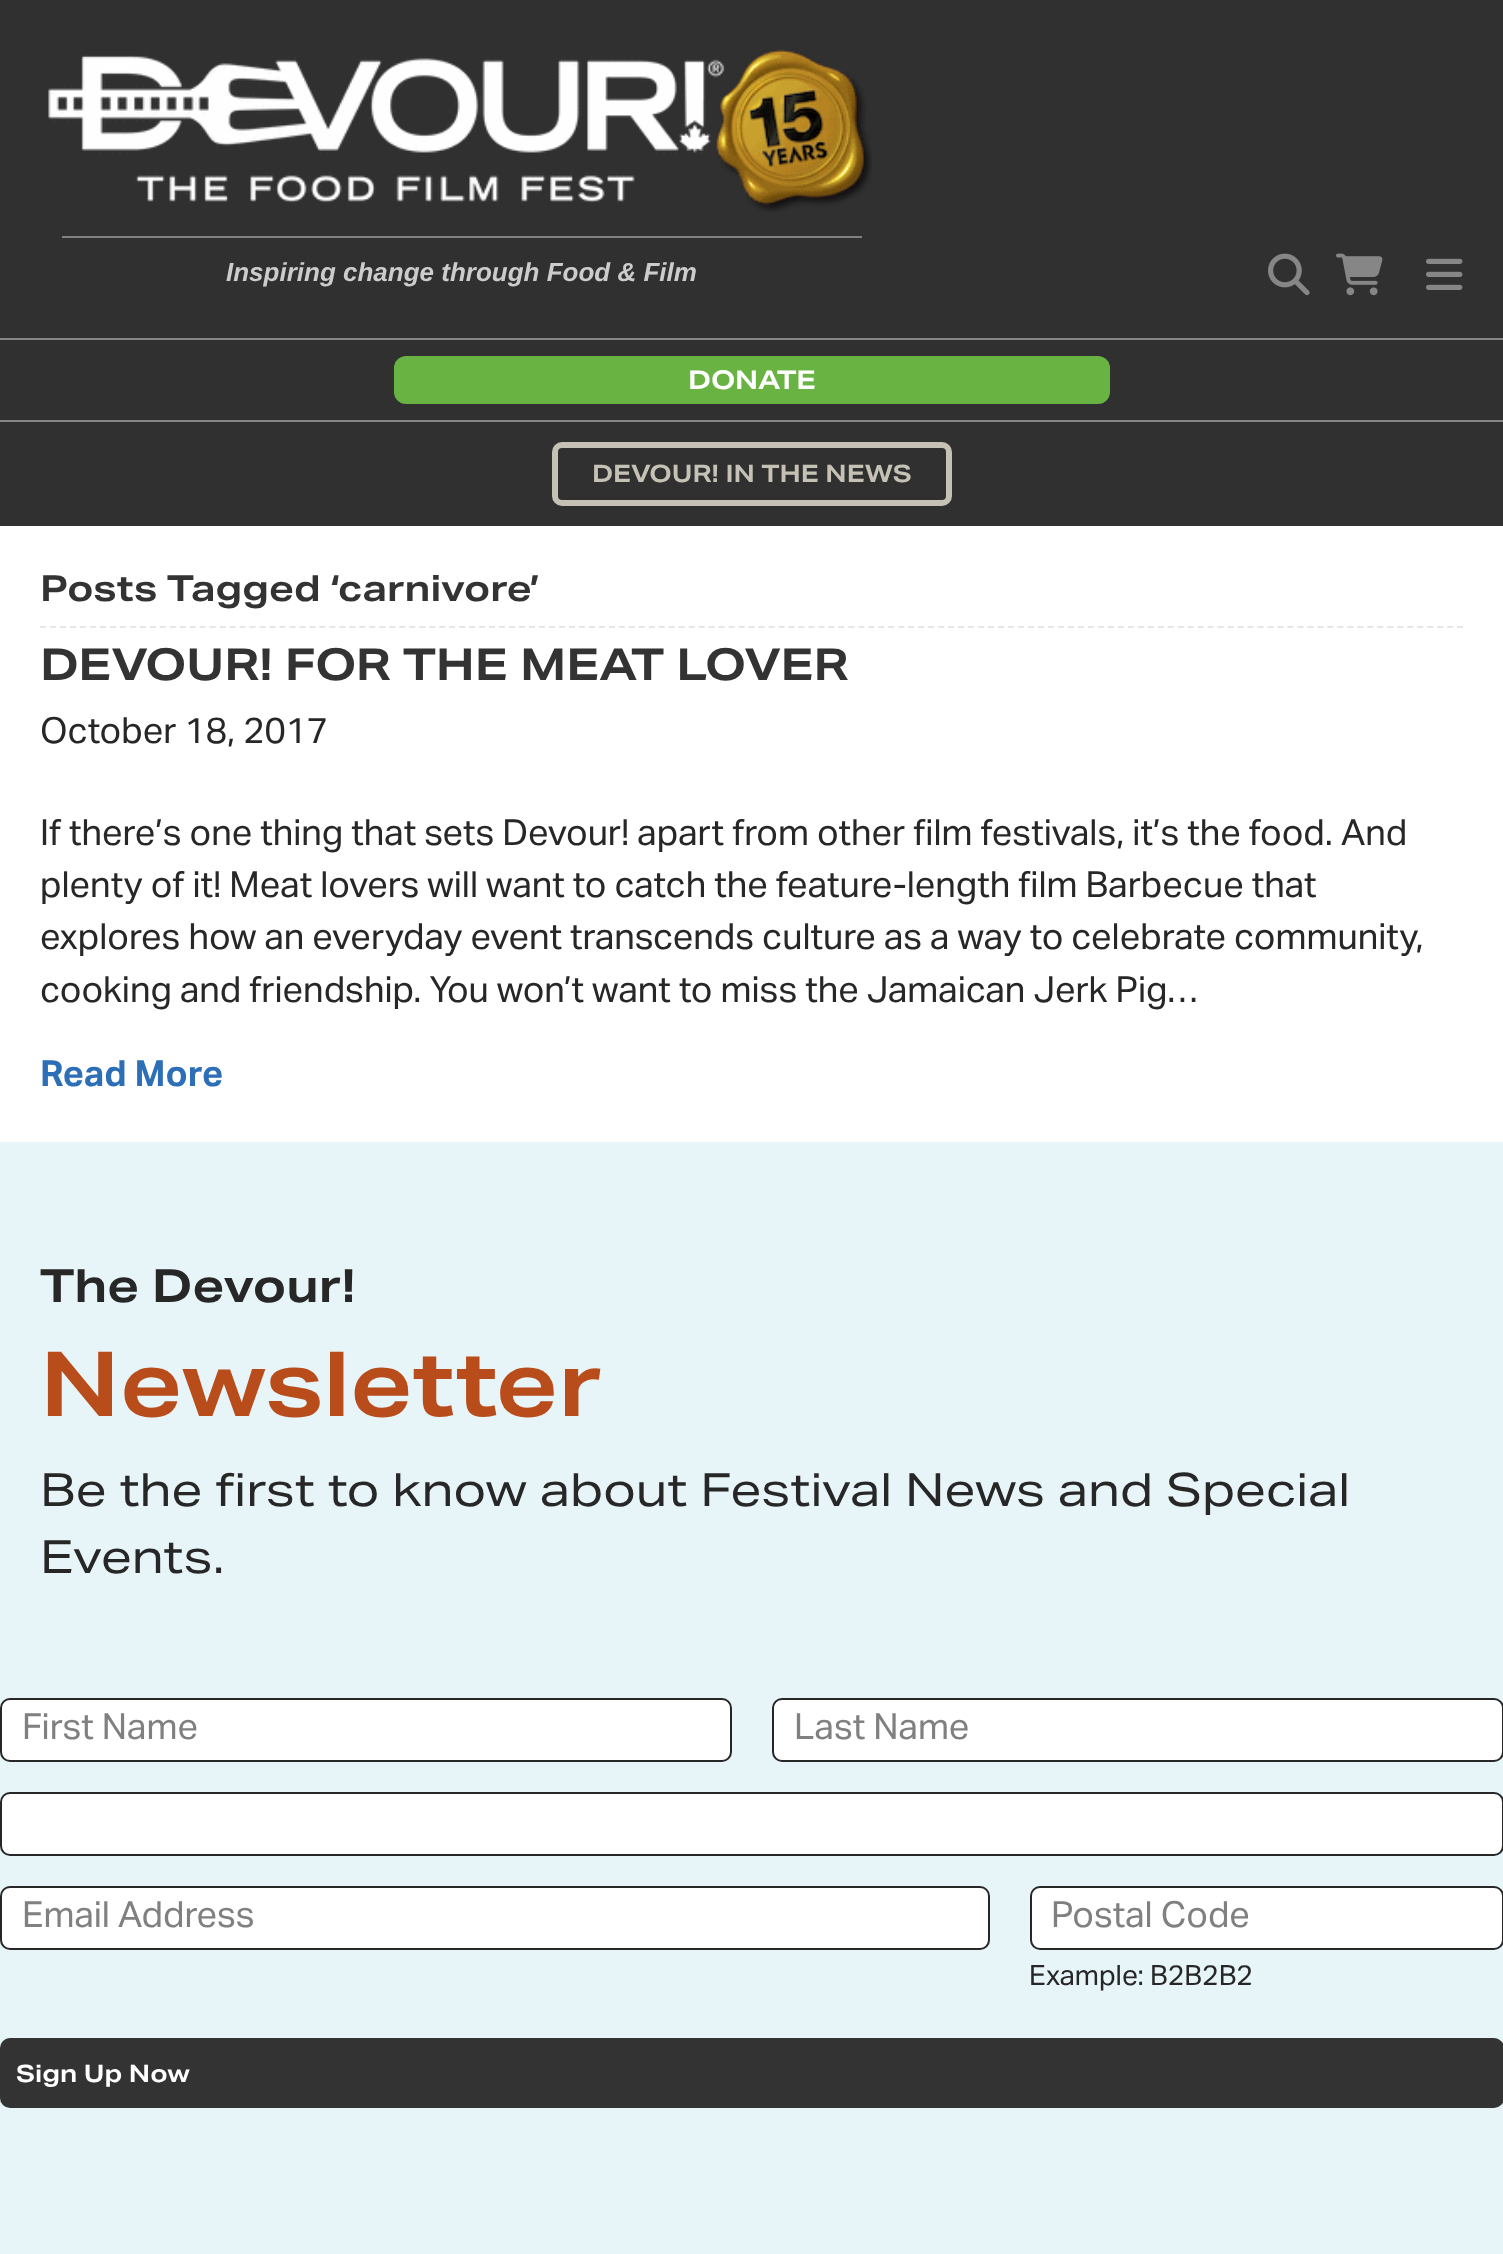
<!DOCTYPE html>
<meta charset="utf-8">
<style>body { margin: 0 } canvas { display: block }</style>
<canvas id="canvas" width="1503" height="2254"></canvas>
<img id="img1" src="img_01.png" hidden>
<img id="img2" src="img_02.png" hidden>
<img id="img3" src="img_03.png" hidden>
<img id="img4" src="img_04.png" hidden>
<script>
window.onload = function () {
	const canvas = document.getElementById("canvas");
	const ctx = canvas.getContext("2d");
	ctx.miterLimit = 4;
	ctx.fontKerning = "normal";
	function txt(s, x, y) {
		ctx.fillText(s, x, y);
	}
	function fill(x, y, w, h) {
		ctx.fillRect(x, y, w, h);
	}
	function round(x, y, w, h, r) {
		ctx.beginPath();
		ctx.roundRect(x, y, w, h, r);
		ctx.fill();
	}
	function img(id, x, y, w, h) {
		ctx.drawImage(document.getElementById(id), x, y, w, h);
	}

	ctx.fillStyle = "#FFFFFF";
	fill(0, 0, 1503, 2254);
	ctx.fillStyle = "#303030";
	fill(0, 0, 1503, 526);
	img("img1", 48, 49, 824, 163);
	ctx.fillStyle = "#808080";
	fill(62, 236, 800, 2);
	img("img2", 1268, 253, 42, 43);
	img("img3", 1336, 253, 47, 43);
	img("img4", 1426, 258, 37, 32);
	ctx.fillStyle = "#868686";
	fill(0, 338, 1503, 2);
	fill(0, 420, 1503, 2);
	ctx.fillStyle = "#69B342";
	round(394, 356, 716, 48, 12);
	ctx.beginPath();
	ctx.roundRect(555, 445, 394, 58, 7);
	ctx.strokeStyle = "#C5C1B5";
	ctx.lineWidth = 6;
	ctx.stroke();
	ctx.beginPath();
	ctx.moveTo(40, 627);
	ctx.lineTo(1464, 627);
	ctx.strokeStyle = "#E6E6E6";
	ctx.lineWidth = 2;
	ctx.setLineDash([6, 3.98]);
	ctx.stroke();
	ctx.fillStyle = "#E7F5F9";
	fill(0, 1142, 1503, 1112);
	ctx.fillStyle = "#FFFFFF";
	ctx.beginPath();
	ctx.roundRect(1, 1699, 730, 62, 9);
	ctx.fill();
	ctx.strokeStyle = "#272727";
	ctx.setLineDash([]);
	ctx.stroke();
	ctx.beginPath();
	ctx.roundRect(773, 1699, 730, 62, 9);
	ctx.fill();
	ctx.stroke();
	ctx.beginPath();
	ctx.roundRect(1, 1793, 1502, 62, 9);
	ctx.fill();
	ctx.stroke();
	ctx.beginPath();
	ctx.roundRect(1, 1887, 988, 62, 9);
	ctx.fill();
	ctx.stroke();
	ctx.beginPath();
	ctx.roundRect(1031, 1887, 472, 62, 9);
	ctx.fill();
	ctx.stroke();
	ctx.fillStyle = "#333333";
	round(0, 2038, 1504, 70, 10);
	ctx.font = "italic bold 26px Liberation Sans";
	ctx.fillStyle = "#CCCCCC";
	txt("Inspiring change through Food & Film", 226, 281);
	ctx.font = "bold 26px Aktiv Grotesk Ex";
	ctx.fillStyle = "#FFFFFF";
	txt("DONATE", 688, 389);
	ctx.font = "bold 24px Aktiv Grotesk Ex";
	ctx.fillStyle = "#C5C1B5";
	txt("DEVOUR! IN THE NEWS", 592, 482);
	ctx.font = "bold 36px Aktiv Grotesk Ex";
	ctx.fillStyle = "#333333";
	txt("Posts Tagged ‘carnivore’", 40, 601);
	ctx.font = "bold 44px Aktiv Grotesk Ex";
	txt("DEVOUR! FOR THE MEAT LOVER", 40, 680);
	ctx.font = "36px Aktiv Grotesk";
	ctx.fillStyle = "#272727";
	txt("October 18, 2017", 40, 743);
	txt("If there’s one thing that sets Devour! apart from other film festivals, it’s the food. And", 40, 845);
	txt("plenty of it! Meat lovers will want to catch the feature-length film Barbecue that", 40, 897);
	txt("explores how an everyday event transcends culture as a way to celebrate community,", 40, 949);
	txt("cooking and friendship. You won’t want to miss the Jamaican Jerk Pig…", 40, 1002);
	ctx.font = "bold 36px Aktiv Grotesk";
	ctx.fillStyle = "#2D6FB7";
	txt("Read More", 40, 1086);
	ctx.font = "bold 46px Aktiv Grotesk Ex";
	ctx.fillStyle = "#272727";
	txt("The Devour!", 40, 1302);
	ctx.font = "bold 90px Aktiv Grotesk Ex";
	ctx.fillStyle = "#B94C1B";
	txt("Newsletter", 40, 1416);
	ctx.font = "46px Aktiv Grotesk Ex";
	ctx.fillStyle = "#272727";
	txt("Be the first to know about Festival News and Special", 40, 1506);
	txt("Events.", 40, 1573);
	ctx.font = "36px Aktiv Grotesk";
	ctx.fillStyle = "#808080";
	txt("First Name", 22, 1739);
	txt("Last Name", 794, 1739);
	txt("Email Address", 22, 1927);
	txt("Postal Code", 1051, 1927);
	ctx.font = "28px Aktiv Grotesk";
	ctx.fillStyle = "#272727";
	txt("Example: B2B2B2", 1029, 1985);
	ctx.font = "bold 24px Aktiv Grotesk Ex";
	ctx.fillStyle = "#FFFFFF";
	txt("Sign Up Now", 16, 2082);
};
</script>
